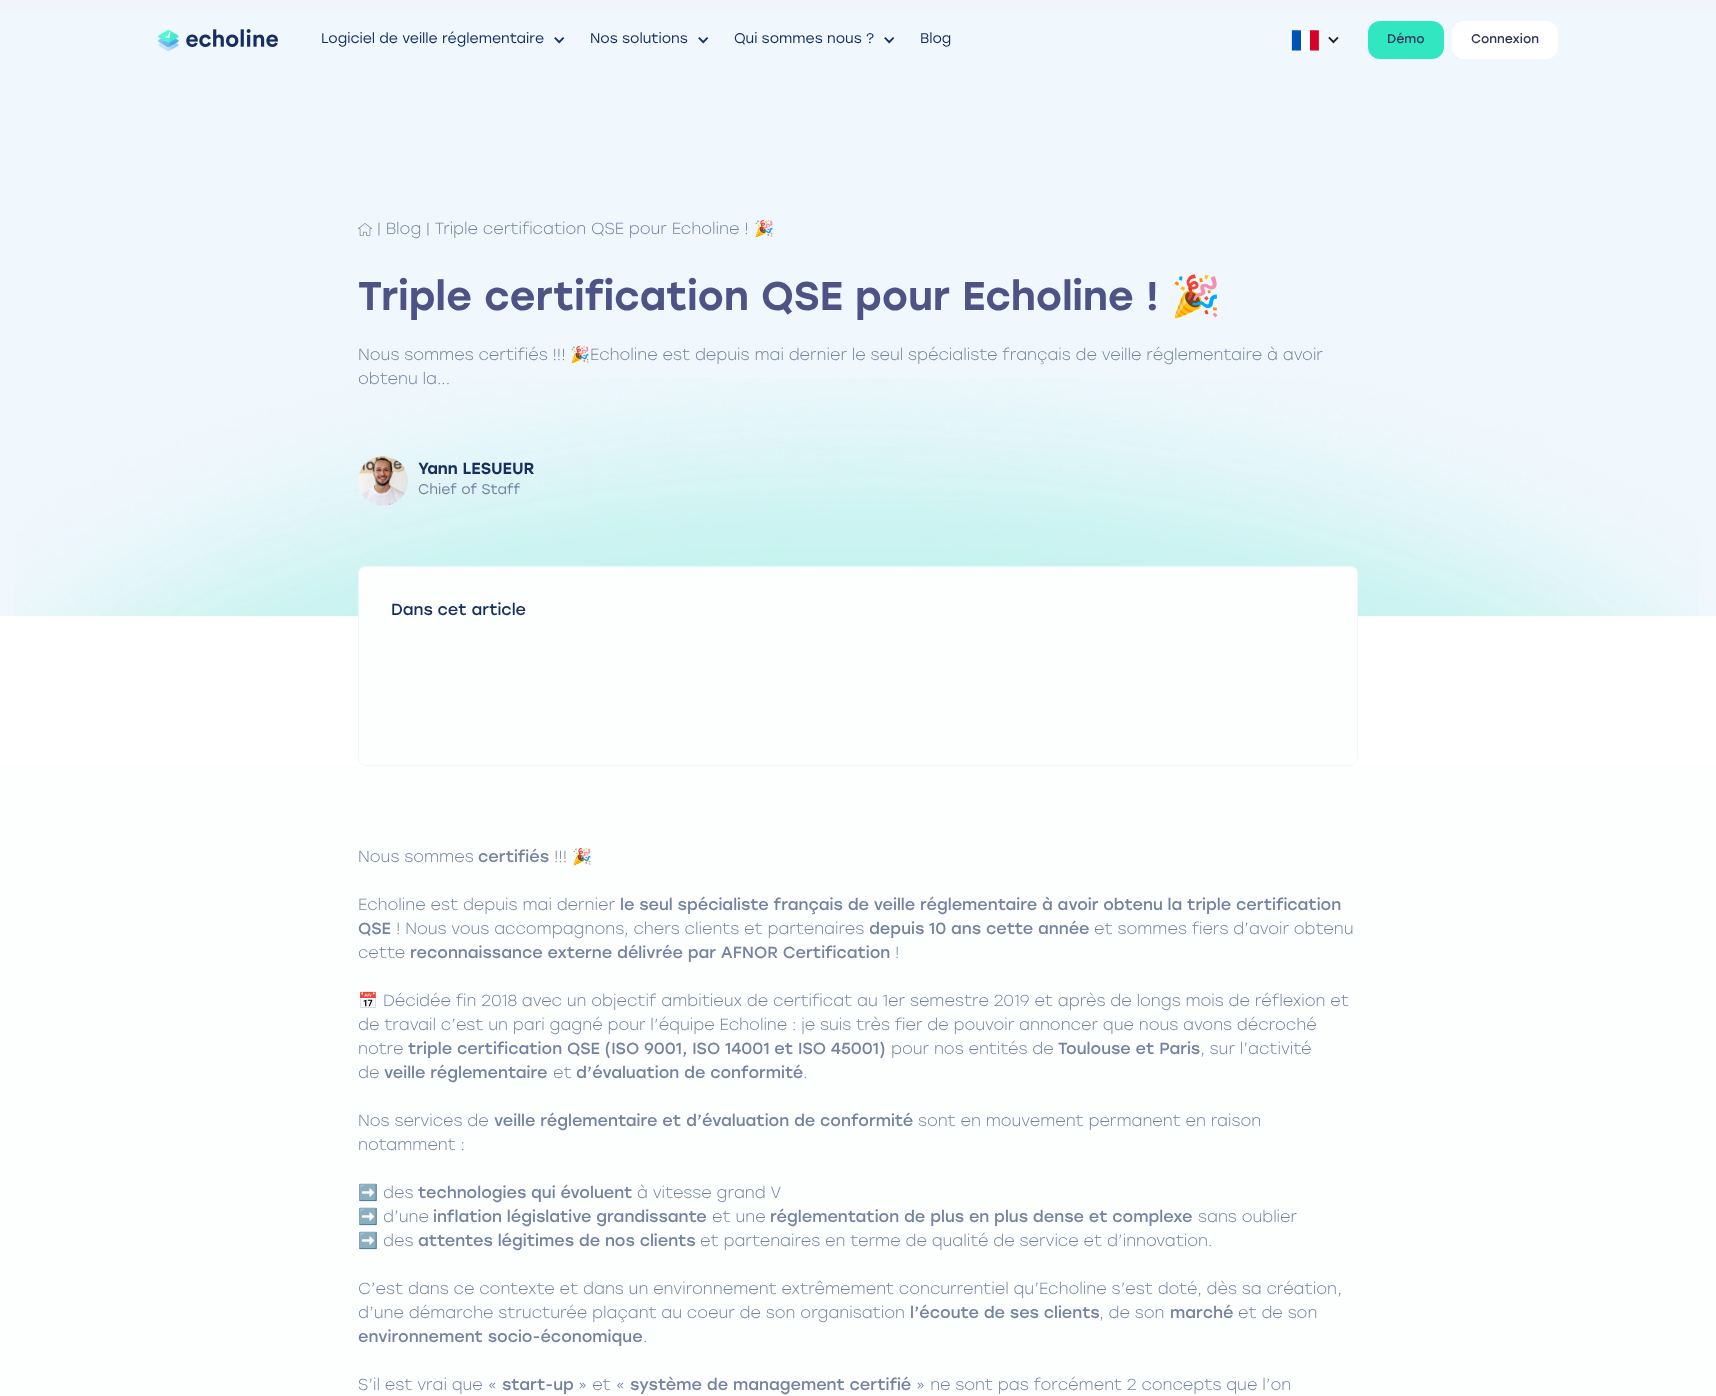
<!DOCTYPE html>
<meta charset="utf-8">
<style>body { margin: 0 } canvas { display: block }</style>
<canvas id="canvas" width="1716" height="1396"></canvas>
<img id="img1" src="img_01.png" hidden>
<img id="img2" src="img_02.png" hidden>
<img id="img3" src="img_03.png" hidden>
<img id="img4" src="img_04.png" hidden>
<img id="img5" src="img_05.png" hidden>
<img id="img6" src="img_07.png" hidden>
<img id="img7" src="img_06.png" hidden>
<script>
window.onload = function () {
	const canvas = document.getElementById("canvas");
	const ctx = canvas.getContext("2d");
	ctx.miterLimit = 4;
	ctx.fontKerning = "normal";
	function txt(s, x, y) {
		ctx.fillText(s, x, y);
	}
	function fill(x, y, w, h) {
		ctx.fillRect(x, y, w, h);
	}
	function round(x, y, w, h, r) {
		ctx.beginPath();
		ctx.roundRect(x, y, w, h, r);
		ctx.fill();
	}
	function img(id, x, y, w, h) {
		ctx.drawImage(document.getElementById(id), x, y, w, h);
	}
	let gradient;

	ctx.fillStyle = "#F0F8FE";
	fill(0, 0, 1716, 1396);
	gradient = ctx.createLinearGradient(858, 0, 858, 80);
	gradient.addColorStop(0, "#F1F5FB");
	gradient.addColorStop(1, "#F0F8FE");
	ctx.fillStyle = gradient;
	fill(0, 0, 1716, 13);
	img("img1", 158, 29, 120, 22);
	img("img2", 554, 37, 11, 7);
	img("img2", 698, 37, 11, 7);
	img("img2", 884, 37, 11, 7);
	img("img3", 1291, 30, 28, 21);
	img("img4", 1328, 36, 11, 8);
	ctx.fillStyle = "#31E7C1";
	round(1368, 21, 76, 38, 12);
	ctx.fillStyle = "#FFFFFF";
	round(1452, 21, 106, 38, 12);
	img("img5", 358, 223, 14, 13);
	img("img6", 14, 378, 1685, 238);
	ctx.fillStyle = "#F1F9FF";
	ctx.beginPath();
	ctx.arc(383, 481, 25, 0, Math.PI * 2);
	ctx.fill();
	img("img7", 358, 456, 50, 50);
	ctx.fillStyle = "#FFFFFF";
	fill(0, 616, 1716, 150);
	ctx.fillStyle = "#FDFFFF";
	round(358, 566, 1000, 200, 8);
	ctx.beginPath();
	ctx.roundRect(358.5, 566.5, 999, 199, 7.5);
	ctx.strokeStyle = "rgba(195, 228, 251, 0.25)";
	ctx.stroke();
	fill(0, 766, 1716, 630);
	ctx.font = "14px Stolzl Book";
	ctx.fillStyle = "#172E61";
	txt("Logiciel de veille réglementaire", 321, 43);
	txt("Nos solutions", 590, 43);
	txt("Qui sommes nous ?", 734, 43);
	txt("Blog", 920, 43);
	ctx.font = "12.5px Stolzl";
	ctx.fillStyle = "#313558";
	txt("Démo", 1387, 43);
	txt("Connexion", 1471, 43);
	ctx.font = "300 16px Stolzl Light";
	ctx.fillStyle = "#7482A0";
	txt("| Blog | Triple certification QSE pour Echoline !", 377, 234);
	ctx.font = "16px Noto Color Emoji";
	txt("🎉", 754, 234);
	ctx.font = "500 40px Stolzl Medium";
	ctx.fillStyle = "#4D5385";
	txt("Triple certification QSE pour Echoline !", 358, 310);
	ctx.font = "40px Noto Color Emoji";
	txt("🎉", 1171, 310);
	ctx.font = "300 16px Stolzl Light";
	ctx.fillStyle = "#7482A0";
	txt("Nous sommes certifiés !!!", 358, 360);
	ctx.font = "16px Noto Color Emoji";
	txt("🎉", 570, 360);
	ctx.font = "300 16px Stolzl Light";
	txt("Echoline est depuis mai dernier le seul spécialiste français de veille réglementaire à avoir", 590, 360);
	txt("obtenu la...", 358, 384);
	ctx.font = "500 16px Stolzl Medium";
	ctx.fillStyle = "#172E61";
	txt("Yann LESUEUR", 418, 474);
	ctx.font = "14px Stolzl Book";
	ctx.fillStyle = "#7482A0";
	txt("Chief of Staff", 418, 494);
	ctx.font = "16px Stolzl";
	ctx.fillStyle = "#172E61";
	txt("Dans cet article", 391, 615);
	ctx.font = "300 16px Stolzl Light";
	ctx.fillStyle = "#7482A0";
	txt("Nous sommes", 358, 862);
	ctx.font = "16px Stolzl";
	txt("certifiés", 478, 862);
	ctx.font = "300 16px Stolzl Light";
	txt("!!!", 554, 862);
	ctx.font = "16px Noto Color Emoji";
	txt("🎉", 572, 862);
	ctx.font = "300 16px Stolzl Light";
	txt("Echoline est depuis mai dernier", 358, 910);
	ctx.font = "16px Stolzl";
	txt("le seul spécialiste français de veille réglementaire à avoir obtenu la triple certification", 620, 910);
	txt("QSE", 358, 934);
	ctx.font = "300 16px Stolzl Light";
	txt("! Nous vous accompagnons, chers clients et partenaires", 396, 934);
	ctx.font = "16px Stolzl";
	txt("depuis 10 ans cette année", 869, 934);
	ctx.font = "300 16px Stolzl Light";
	txt("et sommes fiers d’avoir obtenu", 1094, 934);
	txt("cette", 358, 958);
	ctx.font = "16px Stolzl";
	txt("reconnaissance externe délivrée par AFNOR Certification", 410, 958);
	ctx.font = "300 16px Stolzl Light";
	txt("!", 895, 958);
	ctx.font = "16px Noto Color Emoji";
	txt("📅", 358, 1006);
	ctx.font = "300 16px Stolzl Light";
	txt("Décidée fin 2018 avec un objectif ambitieux de certificat au 1er semestre 2019 et après de longs mois de réflexion et", 383, 1006);
	txt("de travail c’est un pari gagné pour l’équipe Echoline : je suis très fier de pouvoir annoncer que nous avons décroché", 358, 1030);
	txt("notre", 358, 1054);
	ctx.font = "16px Stolzl";
	txt("triple certification QSE (ISO 9001, ISO 14001 et ISO 45001)", 408, 1054);
	ctx.font = "300 16px Stolzl Light";
	txt("pour nos entités de", 891, 1054);
	ctx.font = "16px Stolzl";
	txt("Toulouse et Paris", 1058, 1054);
	ctx.font = "300 16px Stolzl Light";
	txt(", sur l’activité", 1200, 1054);
	txt("de", 358, 1078);
	ctx.font = "16px Stolzl";
	txt("veille réglementaire", 384, 1078);
	ctx.font = "300 16px Stolzl Light";
	txt("et", 553, 1078);
	ctx.font = "16px Stolzl";
	txt("d’évaluation de conformité", 576, 1078);
	ctx.font = "300 16px Stolzl Light";
	txt(".", 803, 1078);
	txt("Nos services de", 358, 1126);
	ctx.font = "16px Stolzl";
	txt("veille réglementaire et d’évaluation de conformité", 494, 1126);
	ctx.font = "300 16px Stolzl Light";
	txt("sont en mouvement permanent en raison", 918, 1126);
	txt("notamment :", 358, 1150);
	ctx.font = "16px Noto Color Emoji";
	txt("➡️", 358, 1198);
	ctx.font = "300 16px Stolzl Light";
	txt("des", 383, 1198);
	ctx.font = "16px Stolzl";
	txt("technologies qui évoluent", 418, 1198);
	ctx.font = "300 16px Stolzl Light";
	txt("à vitesse grand V", 637, 1198);
	ctx.font = "16px Noto Color Emoji";
	txt("➡️", 358, 1222);
	ctx.font = "300 16px Stolzl Light";
	txt("d’une", 383, 1222);
	ctx.font = "16px Stolzl";
	txt("inflation législative grandissante", 433, 1222);
	ctx.font = "300 16px Stolzl Light";
	txt("et une", 712, 1222);
	ctx.font = "16px Stolzl";
	txt("réglementation de plus en plus dense et complexe", 770, 1222);
	ctx.font = "300 16px Stolzl Light";
	txt("sans oublier", 1198, 1222);
	ctx.font = "16px Noto Color Emoji";
	txt("➡️", 358, 1246);
	ctx.font = "300 16px Stolzl Light";
	txt("des", 383, 1246);
	ctx.font = "16px Stolzl";
	txt("attentes légitimes de nos clients", 418, 1246);
	ctx.font = "300 16px Stolzl Light";
	txt("et partenaires en terme de qualité de service et d’innovation.", 700, 1246);
	txt("C’est dans ce contexte et dans un environnement extrêmement concurrentiel qu’Echoline s’est doté, dès sa création,", 358, 1294);
	txt("d’une démarche structurée plaçant au coeur de son organisation", 358, 1318);
	ctx.font = "16px Stolzl";
	txt("l’écoute de ses clients", 910, 1318);
	ctx.font = "300 16px Stolzl Light";
	txt(", de son", 1099, 1318);
	ctx.font = "16px Stolzl";
	txt("marché", 1170, 1318);
	ctx.font = "300 16px Stolzl Light";
	txt("et de son", 1238, 1318);
	ctx.font = "16px Stolzl";
	txt("environnement socio-économique", 358, 1342);
	ctx.font = "300 16px Stolzl Light";
	txt(".", 643, 1342);
	txt("S’il est vrai que «", 358, 1390);
	ctx.font = "16px Stolzl";
	txt("start-up", 502, 1390);
	ctx.font = "300 16px Stolzl Light";
	txt("» et «", 578, 1390);
	ctx.font = "16px Stolzl";
	txt("système de management certifié", 630, 1390);
	ctx.font = "300 16px Stolzl Light";
	txt("» ne sont pas forcément 2 concepts que l’on", 916, 1390);
};
</script>
